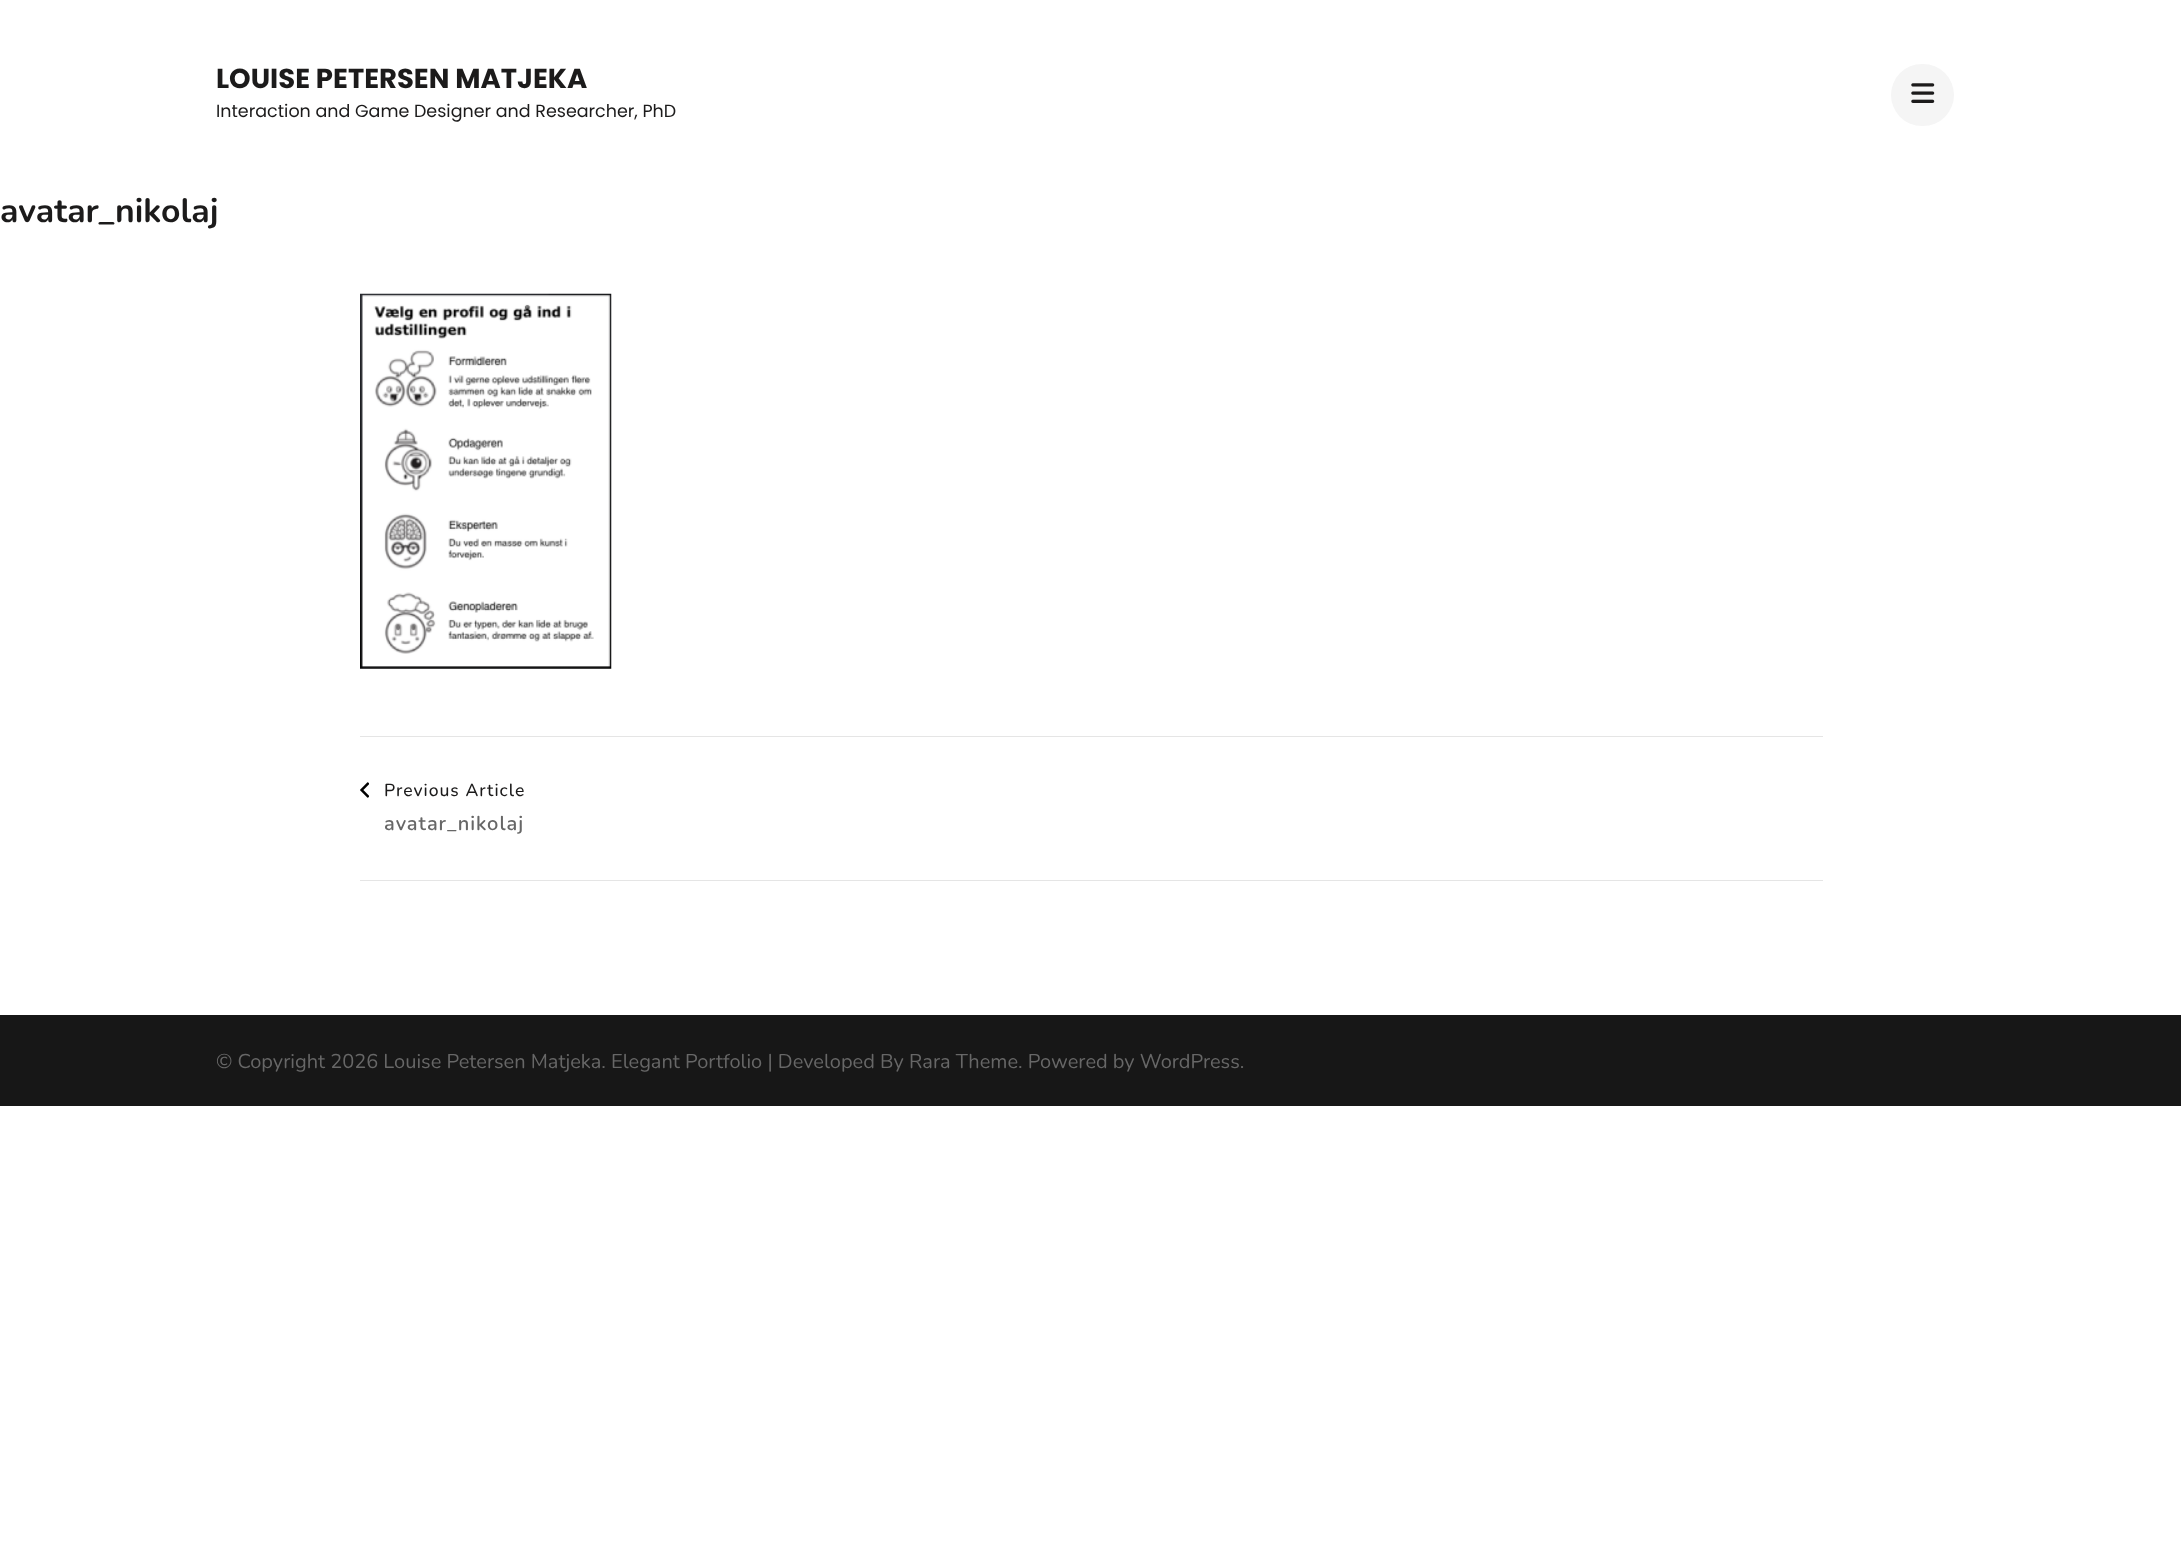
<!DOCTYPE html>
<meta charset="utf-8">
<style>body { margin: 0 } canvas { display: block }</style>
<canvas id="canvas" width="2181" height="1550"></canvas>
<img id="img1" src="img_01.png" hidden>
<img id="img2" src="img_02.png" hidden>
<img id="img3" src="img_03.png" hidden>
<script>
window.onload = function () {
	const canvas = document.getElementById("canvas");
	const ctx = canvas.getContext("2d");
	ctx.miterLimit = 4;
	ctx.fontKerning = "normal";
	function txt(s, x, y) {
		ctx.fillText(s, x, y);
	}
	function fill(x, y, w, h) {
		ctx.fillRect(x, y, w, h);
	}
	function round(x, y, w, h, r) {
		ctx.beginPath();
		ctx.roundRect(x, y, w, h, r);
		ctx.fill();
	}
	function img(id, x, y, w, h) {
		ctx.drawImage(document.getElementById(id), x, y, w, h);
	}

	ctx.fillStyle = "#FFFFFF";
	fill(0, 0, 2181, 1550);
	ctx.fillStyle = "#F5F5F5";
	round(1891, 64, 63, 62, 31);
	img("img1", 1911, 83, 24, 20);
	img("img2", 360, 293, 252, 376);
	ctx.fillStyle = "#E5E5E5";
	fill(360, 736, 1463, 1);
	fill(360, 880, 1463, 1);
	img("img3", 360, 782, 9, 16);
	ctx.fillStyle = "#171717";
	fill(0, 1015, 2181, 91);
	ctx.font = "bold 27.5px Poppins";
	ctx.fillStyle = "#1C1B1B";
	txt("LOUISE PETERSEN MATJEKA", 216, 88);
	ctx.font = "17.5px Poppins";
	txt("Interaction and Game Designer and Researcher, PhD", 216, 117);
	ctx.font = "bold 33.75px Nunito";
	txt("avatar_nikolaj", 0, 222);
	ctx.letterSpacing = "1px";
	ctx.font = "500 17.5px Nunito";
	txt("Previous Article", 384, 796);
	ctx.font = "600 20px Nunito";
	ctx.fillStyle = "#676767";
	txt("avatar_nikolaj", 384, 830);
	ctx.letterSpacing = "0px";
	ctx.font = "20px Nunito";
	txt("© Copyright 2026 Louise Petersen Matjeka. Elegant Portfolio | Developed By Rara Theme. Powered by WordPress.", 216, 1068);
};
</script>
